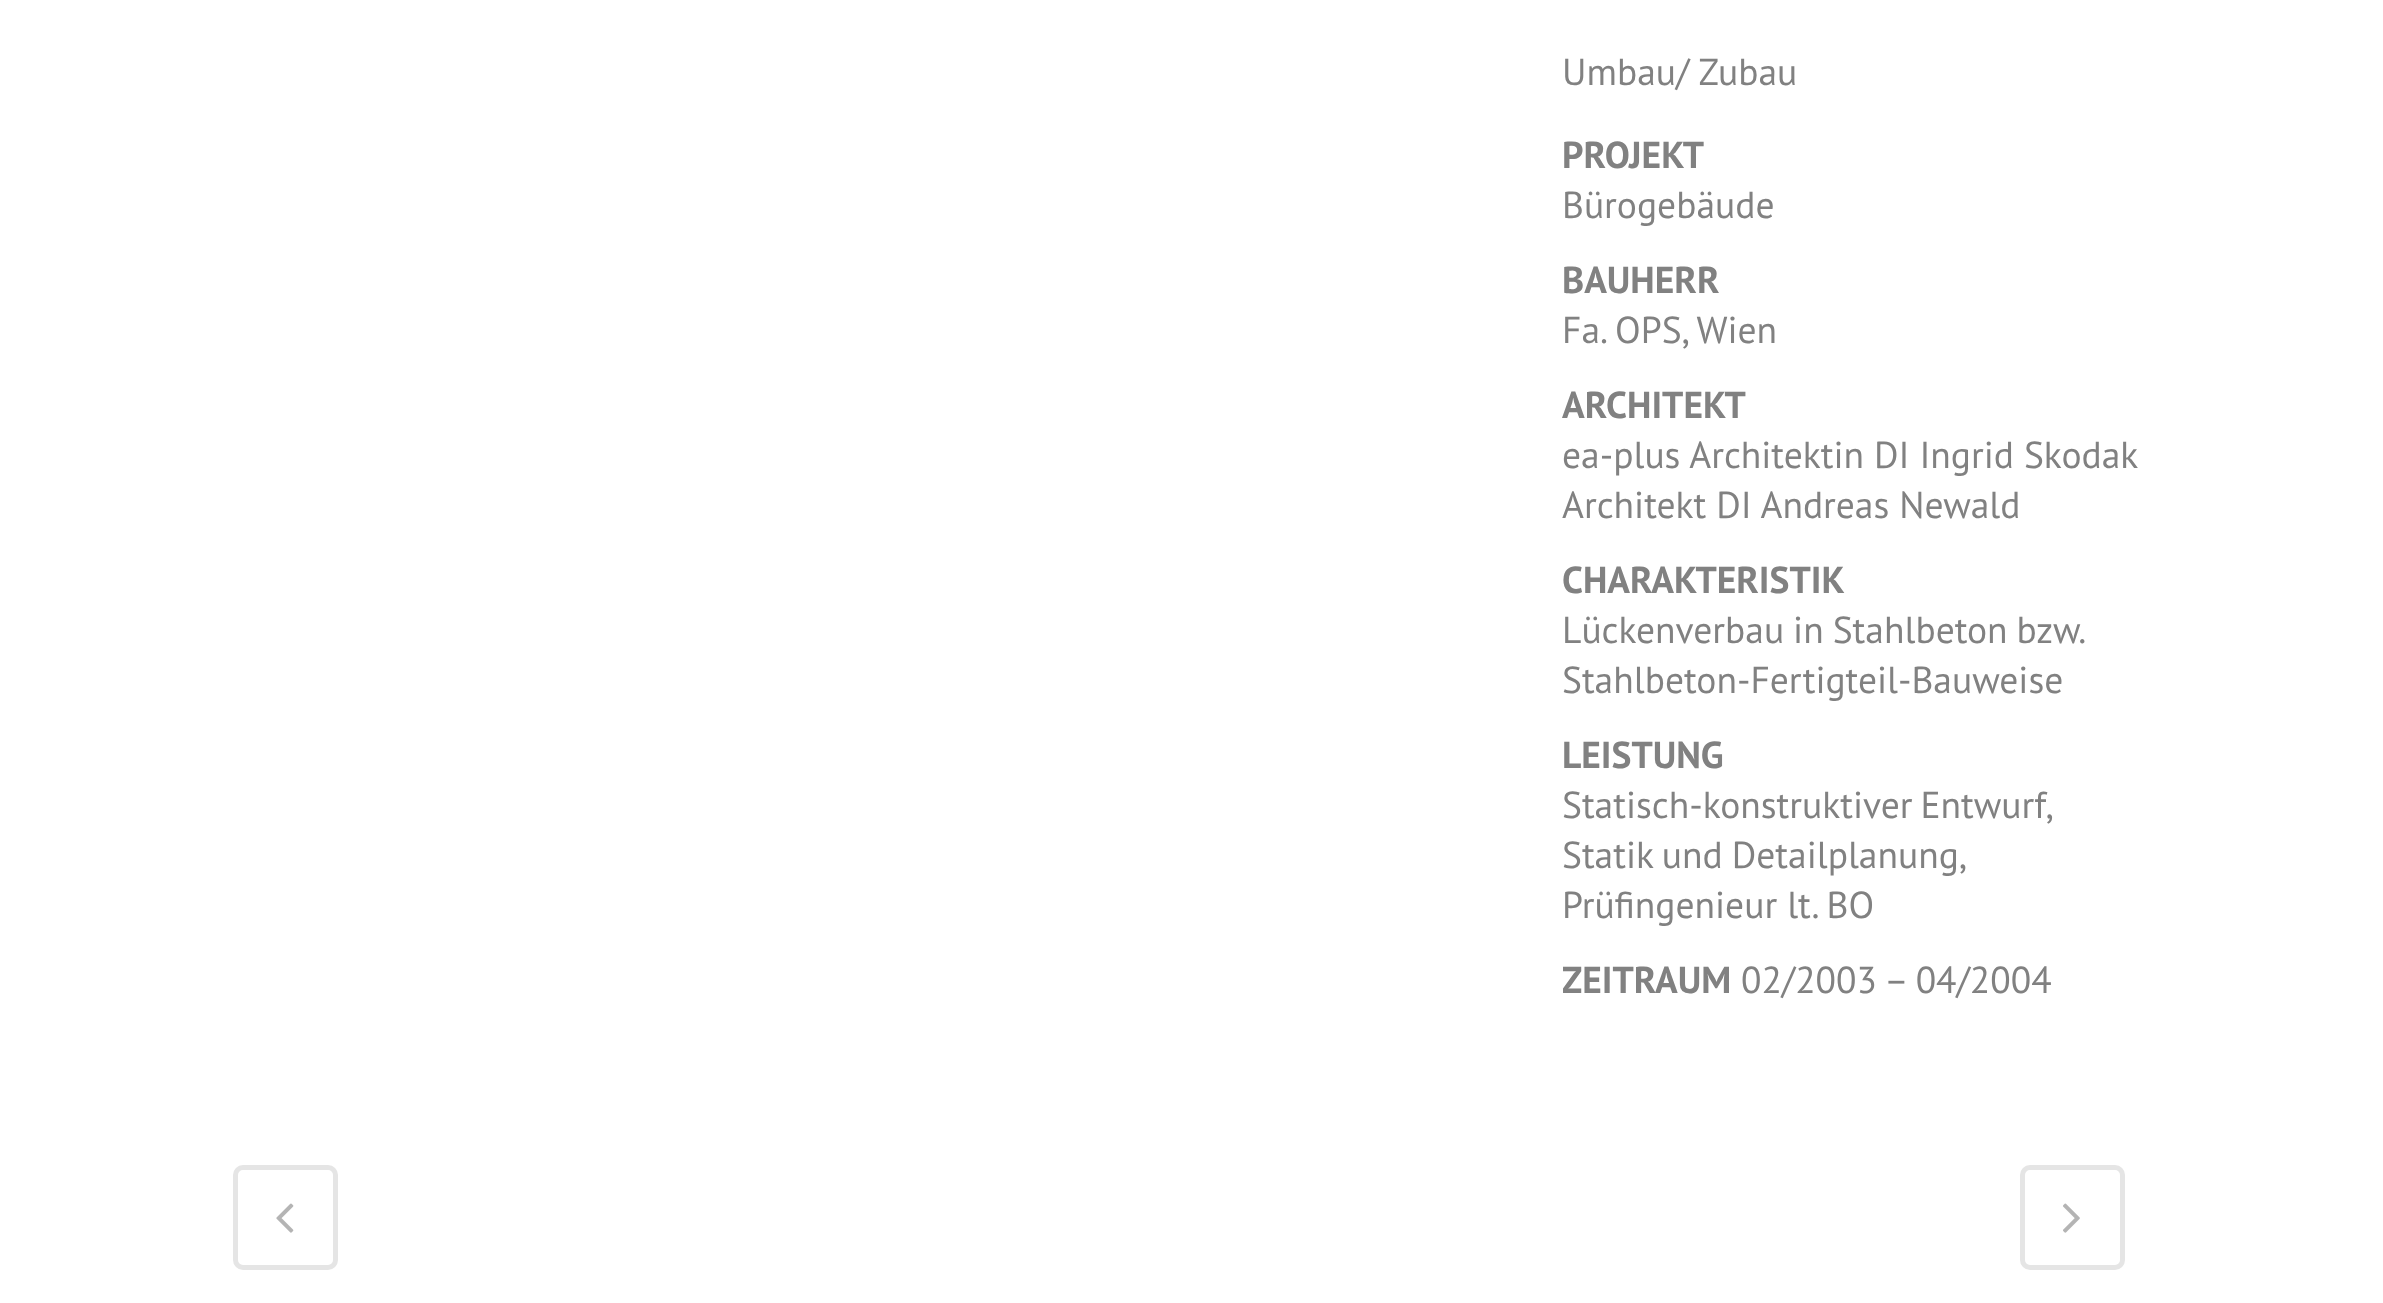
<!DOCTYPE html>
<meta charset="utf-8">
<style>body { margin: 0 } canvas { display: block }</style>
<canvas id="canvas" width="2383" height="1303"></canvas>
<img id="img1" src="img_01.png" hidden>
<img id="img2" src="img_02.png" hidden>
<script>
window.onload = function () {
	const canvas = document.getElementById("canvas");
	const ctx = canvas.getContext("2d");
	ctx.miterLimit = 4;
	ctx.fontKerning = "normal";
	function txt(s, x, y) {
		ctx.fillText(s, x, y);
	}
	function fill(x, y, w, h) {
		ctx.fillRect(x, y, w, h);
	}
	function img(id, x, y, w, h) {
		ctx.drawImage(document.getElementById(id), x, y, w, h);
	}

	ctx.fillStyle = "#FFFFFF";
	fill(0, 0, 2383, 1303);
	ctx.beginPath();
	ctx.roundRect(235.5, 1167.5, 100, 100, 7.5);
	ctx.strokeStyle = "#E5E5E5";
	ctx.lineWidth = 5;
	ctx.stroke();
	img("img1", 276, 1203, 18, 30);
	ctx.beginPath();
	ctx.roundRect(2022.5, 1167.5, 100, 100, 7.5);
	ctx.stroke();
	img("img2", 2063, 1203, 17, 30);
	ctx.font = "37.5px PT Sans";
	ctx.fillStyle = "#818181";
	txt("Umbau/ Zubau", 1562, 85);
	ctx.font = "bold 37.5px PT Sans";
	txt("PROJEKT", 1562, 168);
	ctx.font = "37.5px PT Sans";
	txt("Bürogebäude", 1562, 218);
	ctx.font = "bold 37.5px PT Sans";
	txt("BAUHERR", 1562, 293);
	ctx.font = "37.5px PT Sans";
	txt("Fa. OPS, Wien", 1562, 343);
	ctx.font = "bold 37.5px PT Sans";
	txt("ARCHITEKT", 1562, 418);
	ctx.font = "37.5px PT Sans";
	txt("ea-plus Architektin DI Ingrid Skodak", 1562, 468);
	txt("Architekt DI Andreas Newald", 1562, 518);
	ctx.font = "bold 37.5px PT Sans";
	txt("CHARAKTERISTIK", 1562, 593);
	ctx.wordSpacing = "-1px";
	ctx.font = "37.5px PT Sans";
	txt("Lückenverbau in Stahlbeton bzw.", 1562, 643);
	ctx.wordSpacing = "0px";
	txt("Stahlbeton-Fertigteil-Bauweise", 1562, 693);
	ctx.font = "bold 37.5px PT Sans";
	txt("LEISTUNG", 1562, 768);
	ctx.wordSpacing = "-2px";
	ctx.font = "37.5px PT Sans";
	txt("Statisch-konstruktiver Entwurf,", 1562, 818);
	ctx.wordSpacing = "-1px";
	txt("Statik und Detailplanung,", 1562, 868);
	ctx.wordSpacing = "0px";
	txt("Prüfingenieur lt. BO", 1562, 918);
	ctx.font = "bold 37.5px PT Sans";
	txt("ZEITRAUM", 1562, 993);
	ctx.font = "37.5px PT Sans";
	txt("02/2003 – 04/2004", 1741, 993);
};
</script>
